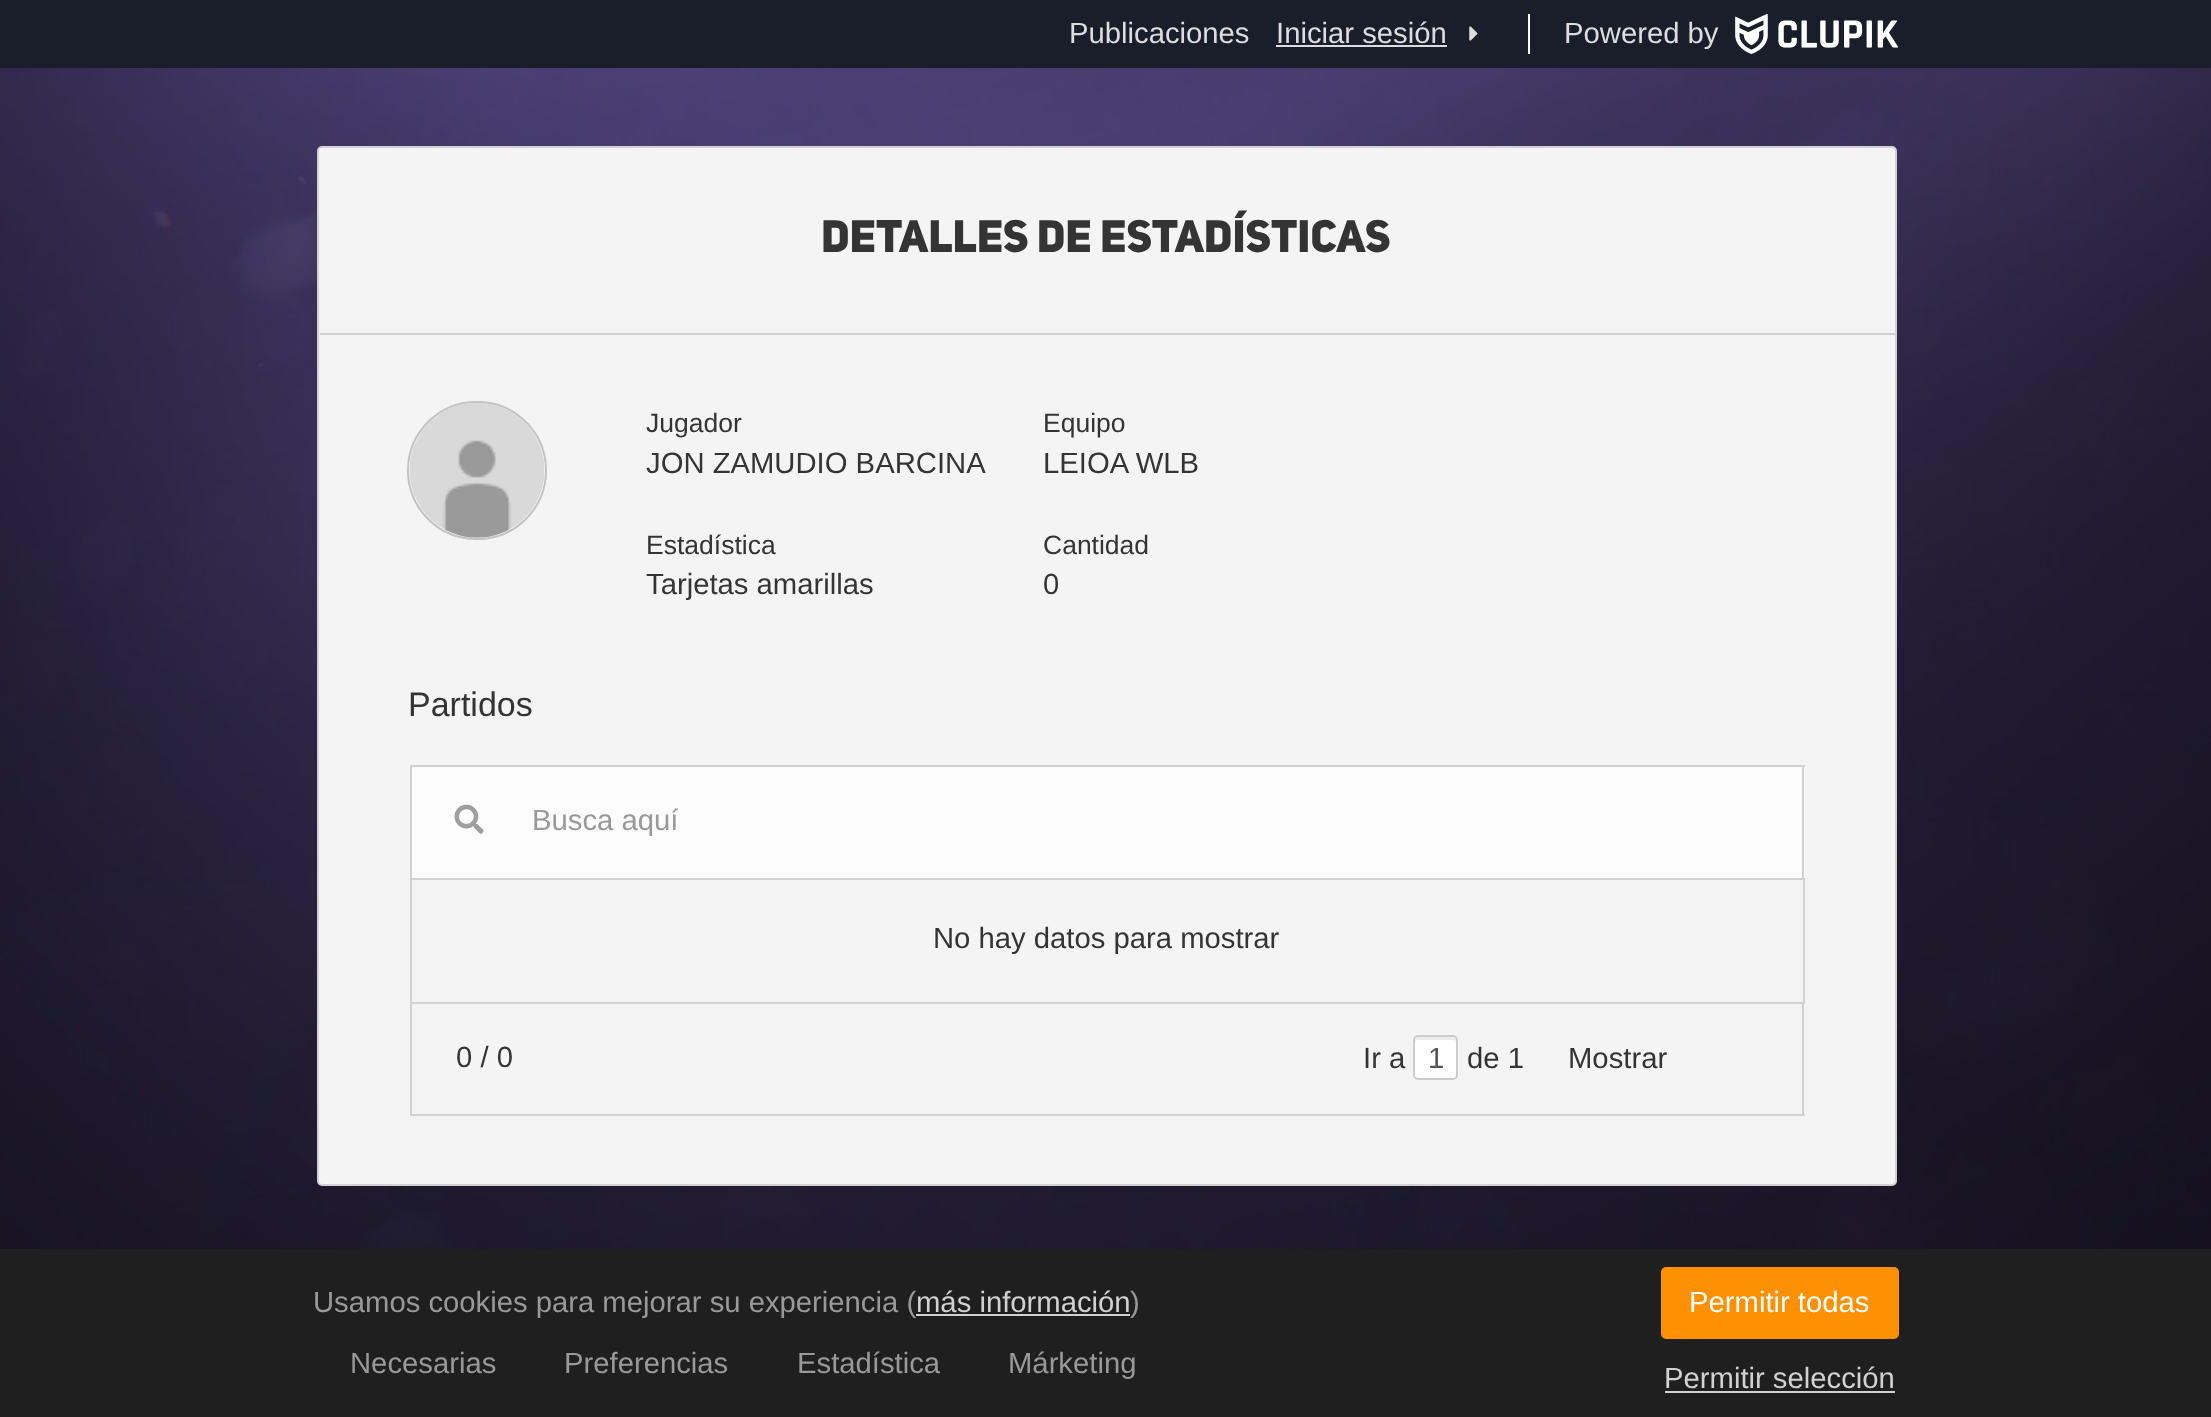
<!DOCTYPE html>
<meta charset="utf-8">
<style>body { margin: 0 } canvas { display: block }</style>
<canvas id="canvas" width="2211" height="1417"></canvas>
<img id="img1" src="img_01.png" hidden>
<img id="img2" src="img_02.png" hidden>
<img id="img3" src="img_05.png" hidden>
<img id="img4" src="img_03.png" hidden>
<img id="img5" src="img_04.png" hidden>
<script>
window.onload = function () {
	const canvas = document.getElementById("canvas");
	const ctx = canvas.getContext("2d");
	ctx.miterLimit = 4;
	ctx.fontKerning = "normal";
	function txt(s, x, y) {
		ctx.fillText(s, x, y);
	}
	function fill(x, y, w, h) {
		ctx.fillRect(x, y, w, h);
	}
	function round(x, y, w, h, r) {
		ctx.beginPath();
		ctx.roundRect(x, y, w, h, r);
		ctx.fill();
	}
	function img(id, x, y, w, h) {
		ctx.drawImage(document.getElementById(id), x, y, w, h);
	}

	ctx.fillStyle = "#FFFFFF";
	fill(0, 0, 2211, 1417);
	ctx.fillStyle = "#1A1E2A";
	fill(0, 0, 2211, 68);
	ctx.fillStyle = "#DDDDDF";
	fill(1276, 45, 171, 2);
	img("img1", 1469, 26, 9, 15);
	ctx.fillStyle = "#FFFFFF";
	fill(1528, 14, 2, 40);
	img("img2", 1735, 14, 163, 40);
	img("img3", 0, 68, 2211, 1181);
	ctx.fillStyle = "#F4F4F4";
	ctx.beginPath();
	ctx.roundRect(318, 147, 1578, 1038, 4);
	ctx.fill();
	ctx.strokeStyle = "#D1D1D1";
	ctx.lineWidth = 2;
	ctx.stroke();
	ctx.fillStyle = "#D1D1D1";
	fill(320, 333, 1575, 2);
	ctx.beginPath();
	ctx.roundRect(408, 402, 138, 137, 68.5);
	ctx.strokeStyle = "#C3C3C3";
	ctx.stroke();
	img("img4", 409, 403, 136, 135);
	ctx.fillStyle = "#FCFCFC";
	fill(412, 767, 1393, 111);
	ctx.fillStyle = "#D1D1D1";
	fill(410, 765, 1395, 2);
	fill(1802, 765, 2, 113);
	fill(410, 765, 2, 113);
	img("img5", 454, 804, 30, 30);
	ctx.strokeStyle = "#D1D1D1";
	ctx.strokeRect(411, 879, 1393, 124);
	fill(1802, 1004, 2, 112);
	fill(410, 1114, 1395, 2);
	fill(410, 1004, 2, 112);
	ctx.fillStyle = "#FFFFFF";
	round(1413, 1035, 45, 45, 5);
	ctx.fillStyle = "#ECECEC";
	ctx.beginPath();
	ctx.moveTo(1418, 1040);
	ctx.lineTo(1454, 1040);
	ctx.bezierCurveTo(1455, 1040, 1456, 1041, 1456, 1042);
	ctx.bezierCurveTo(1456, 1036, 1455, 1037, 1448, 1037);
	ctx.lineTo(1423, 1037);
	ctx.bezierCurveTo(1416, 1037, 1415, 1036, 1415, 1042);
	ctx.bezierCurveTo(1415, 1041, 1416, 1040, 1418, 1040);
	ctx.closePath();
	ctx.fill();
	ctx.beginPath();
	ctx.roundRect(1414, 1036, 43, 43, 4);
	ctx.strokeStyle = "#CCCCCC";
	ctx.stroke();
	ctx.fillStyle = "#1F1F1F";
	fill(0, 1249, 2211, 168);
	ctx.fillStyle = "#D1D1D1";
	fill(916, 1314, 214, 2);
	ctx.fillStyle = "#FE9003";
	ctx.beginPath();
	ctx.roundRect(1662, 1268, 236, 70, 4);
	ctx.fill();
	ctx.strokeStyle = "#FE9003";
	ctx.stroke();
	ctx.fillStyle = "#D1D1D1";
	fill(1665, 1391, 230, 2);
	ctx.font = "29.25px Liberation Sans";
	ctx.fillStyle = "#DDDDDF";
	txt("Publicaciones", 1069, 43);
	txt("Iniciar sesión", 1276, 43);
	txt("Powered by", 1564, 43);
	ctx.font = "900 45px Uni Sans";
	ctx.fillStyle = "#343434";
	txt("Detalles de estadísticas", 821, 252);
	ctx.font = "26.5px Liberation Sans";
	txt("Jugador", 646, 432);
	ctx.font = "29.25px Liberation Sans";
	txt("JON ZAMUDIO BARCINA", 646, 473);
	ctx.font = "26.5px Liberation Sans";
	txt("Equipo", 1043, 432);
	ctx.font = "29.25px Liberation Sans";
	txt("LEIOA WLB", 1043, 473);
	ctx.font = "26.5px Liberation Sans";
	txt("Estadística", 646, 554);
	ctx.font = "29.25px Liberation Sans";
	txt("Tarjetas amarillas", 646, 594);
	ctx.font = "26.5px Liberation Sans";
	txt("Cantidad", 1043, 554);
	ctx.font = "29.25px Liberation Sans";
	txt("0", 1043, 594);
	ctx.font = "34px Liberation Sans";
	txt("Partidos", 408, 716);
	ctx.font = "29.25px Liberation Sans";
	ctx.fillStyle = "#999999";
	txt("Busca aquí", 532, 830);
	ctx.fillStyle = "#343434";
	txt("No hay datos para mostrar", 933, 948);
	txt("0 / 0", 456, 1067);
	txt("Ir a", 1363, 1068);
	ctx.fillStyle = "#545454";
	txt("1", 1428, 1068);
	ctx.fillStyle = "#343434";
	txt("de 1", 1467, 1068);
	txt("Mostrar", 1568, 1068);
	ctx.fillStyle = "#999999";
	txt("Usamos cookies para mejorar su experiencia (", 313, 1312);
	ctx.fillStyle = "#D1D1D1";
	txt("más información", 916, 1312);
	ctx.fillStyle = "#999999";
	txt(")", 1130, 1312);
	txt("Necesarias", 350, 1373);
	txt("Preferencias", 564, 1373);
	txt("Estadística", 797, 1373);
	txt("Márketing", 1008, 1373);
	ctx.fillStyle = "#FFFFFF";
	txt("Permitir todas", 1689, 1312);
	ctx.fillStyle = "#D1D1D1";
	txt("Permitir selección", 1664, 1388);
};
</script>
